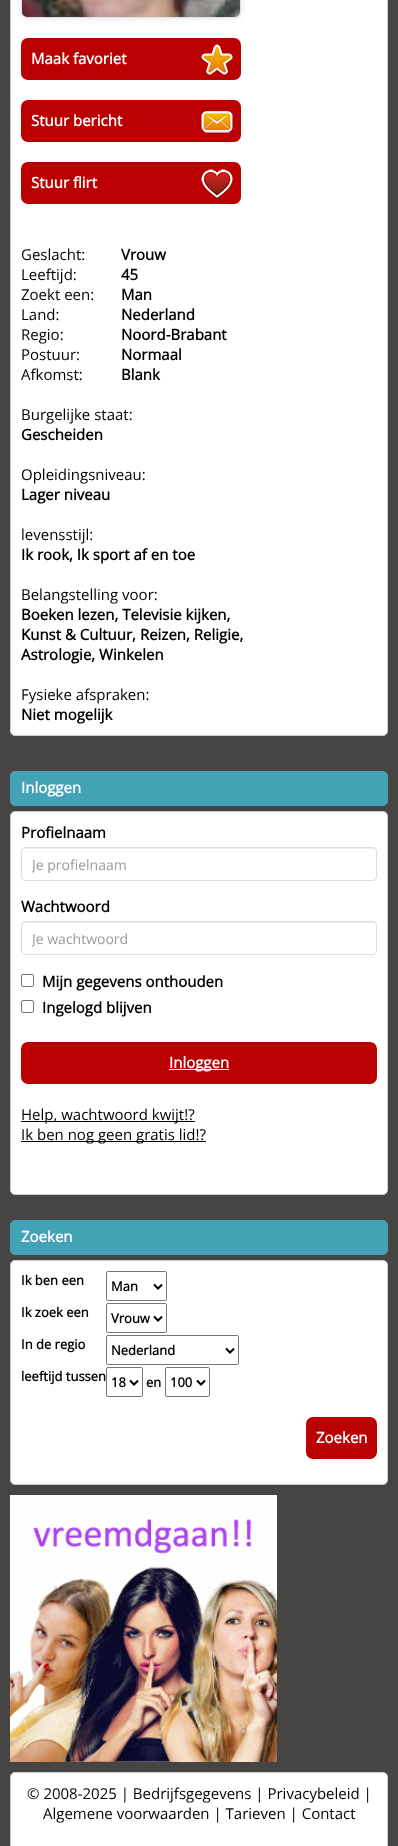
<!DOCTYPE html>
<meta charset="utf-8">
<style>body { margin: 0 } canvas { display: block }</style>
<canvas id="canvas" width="398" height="1846"></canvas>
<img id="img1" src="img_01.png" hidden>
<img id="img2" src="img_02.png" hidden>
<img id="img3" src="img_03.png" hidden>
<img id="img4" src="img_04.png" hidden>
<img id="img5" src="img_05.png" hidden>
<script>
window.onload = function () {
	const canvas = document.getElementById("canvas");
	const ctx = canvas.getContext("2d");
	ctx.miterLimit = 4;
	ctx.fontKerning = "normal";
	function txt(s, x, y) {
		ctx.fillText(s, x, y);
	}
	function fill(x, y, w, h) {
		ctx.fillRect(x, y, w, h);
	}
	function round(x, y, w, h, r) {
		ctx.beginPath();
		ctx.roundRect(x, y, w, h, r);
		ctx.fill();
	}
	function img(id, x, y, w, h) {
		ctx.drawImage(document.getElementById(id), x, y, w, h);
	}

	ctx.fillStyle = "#464543";
	fill(0, 0, 398, 1846);
	ctx.fillStyle = "#FFFFFF";
	ctx.beginPath();
	ctx.roundRect(10.5, -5.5, 377, 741, 4.5);
	ctx.fill();
	ctx.strokeStyle = "#CCCCCC";
	ctx.stroke();
	ctx.fillStyle = "#E6E6E6";
	ctx.filter = "blur(3.5px)";
	ctx.beginPath();
	ctx.roundRect(21, -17, 220, 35, 6);
	ctx.fill();
	ctx.filter = "none";
	ctx.beginPath();
	ctx.roundRect(21.5, -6.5, 219, 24, 5.5);
	ctx.strokeStyle = "#E0E0E0";
	ctx.stroke();
	img("img1", 22, 0, 218, 17);
	ctx.fillStyle = "#BA0001";
	round(21, 38, 220, 42, 7);
	img("img2", 201, 44, 32, 32);
	round(21, 100, 220, 42, 7);
	img("img3", 201, 110, 32, 24);
	round(21, 162, 220, 42, 7);
	img("img4", 201, 169, 32, 30);
	ctx.fillStyle = "#42A3B6";
	ctx.beginPath();
	ctx.roundRect(10.5, 771.5, 377, 34, 4.5);
	ctx.fill();
	ctx.strokeStyle = "#42A3B6";
	ctx.stroke();
	ctx.fillStyle = "#FFFFFF";
	ctx.beginPath();
	ctx.roundRect(10.5, 811.5, 377, 383, 4.5);
	ctx.fill();
	ctx.strokeStyle = "#CCCCCC";
	ctx.stroke();
	ctx.fillStyle = "#ECECEC";
	ctx.beginPath();
	ctx.moveTo(25, 849);
	ctx.lineTo(373, 849);
	ctx.bezierCurveTo(375, 849, 376, 850, 376, 852);
	ctx.bezierCurveTo(376, 850, 375, 848, 373, 848);
	ctx.lineTo(25, 848);
	ctx.lineTo(23, 849);
	ctx.lineTo(22, 852);
	ctx.bezierCurveTo(22, 850, 23, 849, 25, 849);
	ctx.closePath();
	ctx.fill();
	ctx.beginPath();
	ctx.roundRect(21.5, 847.5, 355, 33, 3.5);
	ctx.strokeStyle = "#DCDCDC";
	ctx.stroke();
	ctx.beginPath();
	ctx.moveTo(25, 923);
	ctx.lineTo(373, 923);
	ctx.bezierCurveTo(375, 923, 376, 924, 376, 926);
	ctx.bezierCurveTo(376, 924, 375, 922, 373, 922);
	ctx.lineTo(25, 922);
	ctx.lineTo(23, 923);
	ctx.lineTo(22, 926);
	ctx.bezierCurveTo(22, 924, 23, 923, 25, 923);
	ctx.closePath();
	ctx.fill();
	ctx.beginPath();
	ctx.roundRect(21.5, 921.5, 355, 33, 3.5);
	ctx.stroke();
	ctx.beginPath();
	ctx.roundRect(21.5, 974.5, 12, 12, 1.5);
	ctx.strokeStyle = "#767676";
	ctx.stroke();
	ctx.beginPath();
	ctx.roundRect(21.5, 1000.5, 12, 12, 1.5);
	ctx.stroke();
	ctx.fillStyle = "#BA0001";
	round(21, 1042, 356, 42, 7);
	ctx.fillStyle = "#FFFFFF";
	fill(169, 1069, 60, 1);
	ctx.fillStyle = "#000000";
	fill(21, 1121, 174, 1);
	fill(21, 1141, 185, 1);
	ctx.fillStyle = "#42A3B6";
	ctx.beginPath();
	ctx.roundRect(10.5, 1220.5, 377, 34, 4.5);
	ctx.fill();
	ctx.strokeStyle = "#42A3B6";
	ctx.stroke();
	ctx.fillStyle = "#FFFFFF";
	ctx.beginPath();
	ctx.roundRect(10.5, 1260.5, 377, 224, 4.5);
	ctx.fill();
	ctx.strokeStyle = "#CCCCCC";
	ctx.stroke();
	ctx.beginPath();
	ctx.roundRect(106.5, 1271.5, 60, 29, 1.5);
	ctx.strokeStyle = "#767676";
	ctx.stroke();
	ctx.beginPath();
	ctx.moveTo(154, 1284.5);
	ctx.lineTo(158, 1288.5);
	ctx.lineTo(162, 1284.5);
	ctx.strokeStyle = "#000000";
	ctx.lineWidth = 2;
	ctx.stroke();
	ctx.beginPath();
	ctx.roundRect(106.5, 1303.5, 60, 29, 1.5);
	ctx.strokeStyle = "#767676";
	ctx.lineWidth = 1;
	ctx.stroke();
	ctx.beginPath();
	ctx.moveTo(154, 1316.5);
	ctx.lineTo(158, 1320.5);
	ctx.lineTo(162, 1316.5);
	ctx.strokeStyle = "#000000";
	ctx.lineWidth = 2;
	ctx.stroke();
	ctx.beginPath();
	ctx.roundRect(106.5, 1335.5, 132, 29, 1.5);
	ctx.strokeStyle = "#767676";
	ctx.lineWidth = 1;
	ctx.stroke();
	ctx.beginPath();
	ctx.moveTo(226, 1348.5);
	ctx.lineTo(230, 1352.5);
	ctx.lineTo(234, 1348.5);
	ctx.strokeStyle = "#000000";
	ctx.lineWidth = 2;
	ctx.stroke();
	ctx.beginPath();
	ctx.roundRect(106.5, 1367.5, 36, 29, 1.5);
	ctx.strokeStyle = "#767676";
	ctx.lineWidth = 1;
	ctx.stroke();
	ctx.beginPath();
	ctx.moveTo(130, 1380.5);
	ctx.lineTo(134, 1384.5);
	ctx.lineTo(138, 1380.5);
	ctx.strokeStyle = "#000000";
	ctx.lineWidth = 2;
	ctx.stroke();
	ctx.beginPath();
	ctx.roundRect(165.5, 1367.5, 44, 29, 1.5);
	ctx.strokeStyle = "#767676";
	ctx.lineWidth = 1;
	ctx.stroke();
	ctx.beginPath();
	ctx.moveTo(197, 1380.5);
	ctx.lineTo(201, 1384.5);
	ctx.lineTo(205, 1380.5);
	ctx.strokeStyle = "#000000";
	ctx.lineWidth = 2;
	ctx.stroke();
	ctx.fillStyle = "#BA0001";
	round(306, 1417, 71, 42, 7);
	img("img5", 10, 1495, 267, 267);
	ctx.fillStyle = "#FFFFFF";
	ctx.beginPath();
	ctx.roundRect(10.5, 1772.5, 377, 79, 4.5);
	ctx.fill();
	ctx.strokeStyle = "#CCCCCC";
	ctx.lineWidth = 1;
	ctx.stroke();
	ctx.font = "bold 15px Open Sans";
	txt("Maak favoriet", 31, 64);
	txt("Stuur bericht", 31, 126);
	txt("Stuur flirt", 31, 188);
	ctx.font = "15px Open Sans";
	ctx.fillStyle = "#000000";
	txt("Geslacht:", 21, 260);
	ctx.font = "bold 15px Open Sans";
	txt("Vrouw", 121, 260);
	ctx.font = "15px Open Sans";
	txt("Leeftijd:", 21, 280);
	ctx.font = "bold 15px Open Sans";
	txt("45", 121, 280);
	ctx.font = "15px Open Sans";
	txt("Zoekt een:", 21, 300);
	ctx.font = "bold 15px Open Sans";
	txt("Man", 121, 300);
	ctx.font = "15px Open Sans";
	txt("Land:", 21, 320);
	ctx.font = "bold 15px Open Sans";
	txt("Nederland", 121, 320);
	ctx.font = "15px Open Sans";
	txt("Regio:", 21, 340);
	ctx.font = "bold 15px Open Sans";
	txt("Noord-Brabant", 121, 340);
	ctx.font = "15px Open Sans";
	txt("Postuur:", 21, 360);
	ctx.font = "bold 15px Open Sans";
	txt("Normaal", 121, 360);
	ctx.font = "15px Open Sans";
	txt("Afkomst:", 21, 380);
	ctx.font = "bold 15px Open Sans";
	txt("Blank", 121, 380);
	ctx.font = "15px Open Sans";
	txt("Burgelijke staat:", 21, 420);
	ctx.font = "bold 15px Open Sans";
	txt("Gescheiden", 21, 440);
	ctx.font = "15px Open Sans";
	txt("Opleidingsniveau:", 21, 480);
	ctx.font = "bold 15px Open Sans";
	txt("Lager niveau", 21, 500);
	ctx.font = "15px Open Sans";
	txt("levensstijl:", 21, 540);
	ctx.font = "bold 15px Open Sans";
	txt("Ik rook, Ik sport af en toe", 21, 560);
	ctx.font = "15px Open Sans";
	txt("Belangstelling voor:", 21, 600);
	ctx.font = "bold 15px Open Sans";
	txt("Boeken lezen, Televisie kijken,", 21, 620);
	txt("Kunst & Cultuur, Reizen, Religie,", 21, 640);
	txt("Astrologie, Winkelen", 21, 660);
	ctx.font = "15px Open Sans";
	txt("Fysieke afspraken:", 21, 700);
	ctx.font = "bold 15px Open Sans";
	txt("Niet mogelijk", 21, 720);
	ctx.fillStyle = "#FFFFFF";
	txt("Inloggen", 21, 793);
	ctx.fillStyle = "#000000";
	txt("Profielnaam", 21, 838);
	ctx.save();
	ctx.beginPath();
	ctx.rect(32, 855, 334, 19);
	ctx.clip();
	ctx.font = "14px Open Sans";
	ctx.fillStyle = "#999999";
	txt("Je profielnaam", 32, 870);
	ctx.restore();
	txt("Wachtwoord", 21, 912);
	ctx.save();
	ctx.beginPath();
	ctx.rect(32, 929, 334, 19);
	ctx.clip();
	ctx.font = "14px Open Sans";
	ctx.fillStyle = "#999999";
	txt("Je wachtwoord", 32, 944);
	ctx.restore();
	txt("Mijn gegevens onthouden", 42, 987);
	txt("Ingelogd blijven", 42, 1013);
	ctx.fillStyle = "#FFFFFF";
	txt("Inloggen", 169, 1068);
	ctx.font = "15px Open Sans";
	ctx.fillStyle = "#000000";
	txt("Help, wachtwoord kwijt!?", 21, 1120);
	txt("Ik ben nog geen gratis lid!?", 21, 1140);
	ctx.font = "bold 15px Open Sans";
	ctx.fillStyle = "#FFFFFF";
	txt("Zoeken", 21, 1242);
	ctx.font = "bold 13px Open Sans";
	ctx.fillStyle = "#000000";
	txt("Ik ben een", 21, 1285);
	txt("Man", 111, 1291);
	txt("Ik zoek een", 21, 1317);
	txt("Vrouw", 111, 1323);
	txt("In de regio", 21, 1349);
	txt("Nederland", 111, 1355);
	txt("leeftijd tussen", 21, 1381);
	txt("18", 111, 1387);
	txt("en", 146, 1387);
	txt("100", 170, 1387);
	ctx.font = "bold 15px Open Sans";
	ctx.fillStyle = "#FFFFFF";
	txt("Zoeken", 316, 1443);
	ctx.font = "15px Open Sans";
	ctx.fillStyle = "#000000";
	txt("© 2008-2025 | Bedrijfsgegevens | Privacybeleid |", 27, 1799);
	txt("Algemene voorwaarden | Tarieven | Contact", 43, 1819);
};
</script>
